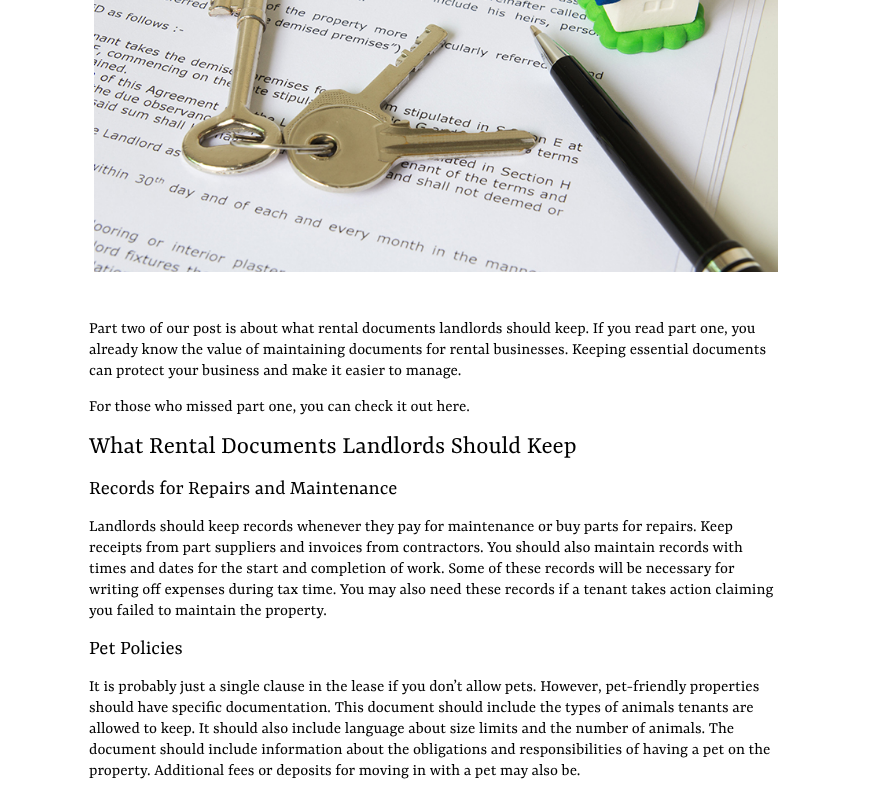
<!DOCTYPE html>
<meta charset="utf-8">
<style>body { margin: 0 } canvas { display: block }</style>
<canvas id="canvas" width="871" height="788"></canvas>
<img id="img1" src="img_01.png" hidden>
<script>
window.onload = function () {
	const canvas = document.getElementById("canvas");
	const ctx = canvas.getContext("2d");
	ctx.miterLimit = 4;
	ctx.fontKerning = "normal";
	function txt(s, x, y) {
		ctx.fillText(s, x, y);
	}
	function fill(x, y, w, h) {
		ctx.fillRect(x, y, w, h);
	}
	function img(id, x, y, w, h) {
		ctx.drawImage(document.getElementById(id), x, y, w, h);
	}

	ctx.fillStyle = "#FFFFFF";
	fill(0, 0, 871, 788);
	img("img1", 94, 0, 684, 272);
	ctx.font = "17px Rasa";
	ctx.fillStyle = "#000000";
	txt("Part two of our post is about what rental documents landlords should keep. If you read part one, you", 89, 333);
	txt("already know the value of maintaining documents for rental businesses. Keeping essential documents", 89, 354);
	txt("can protect your business and make it easier to manage.", 89, 375);
	txt("For those who missed part one, you can check it out here.", 89, 411);
	ctx.font = "26px Rasa";
	txt("What Rental Documents Landlords Should Keep", 89, 453);
	ctx.font = "21px Rasa";
	txt("Records for Repairs and Maintenance", 89, 494);
	ctx.font = "17px Rasa";
	txt("Landlords should keep records whenever they pay for maintenance or buy parts for repairs. Keep", 89, 531);
	txt("receipts from part suppliers and invoices from contractors. You should also maintain records with", 89, 552);
	txt("times and dates for the start and completion of work. Some of these records will be necessary for", 89, 573);
	txt("writing off expenses during tax time. You may also need these records if a tenant takes action claiming", 89, 594);
	txt("you failed to maintain the property.", 89, 615);
	ctx.font = "21px Rasa";
	txt("Pet Policies", 89, 654);
	ctx.font = "17px Rasa";
	txt("It is probably just a single clause in the lease if you don’t allow pets. However, pet-friendly properties", 89, 691);
	txt("should have specific documentation. This document should include the types of animals tenants are", 89, 712);
	txt("allowed to keep. It should also include language about size limits and the number of animals. The", 89, 733);
	txt("document should include information about the obligations and responsibilities of having a pet on the", 89, 754);
	txt("property. Additional fees or deposits for moving in with a pet may also be.", 89, 775);
};
</script>
